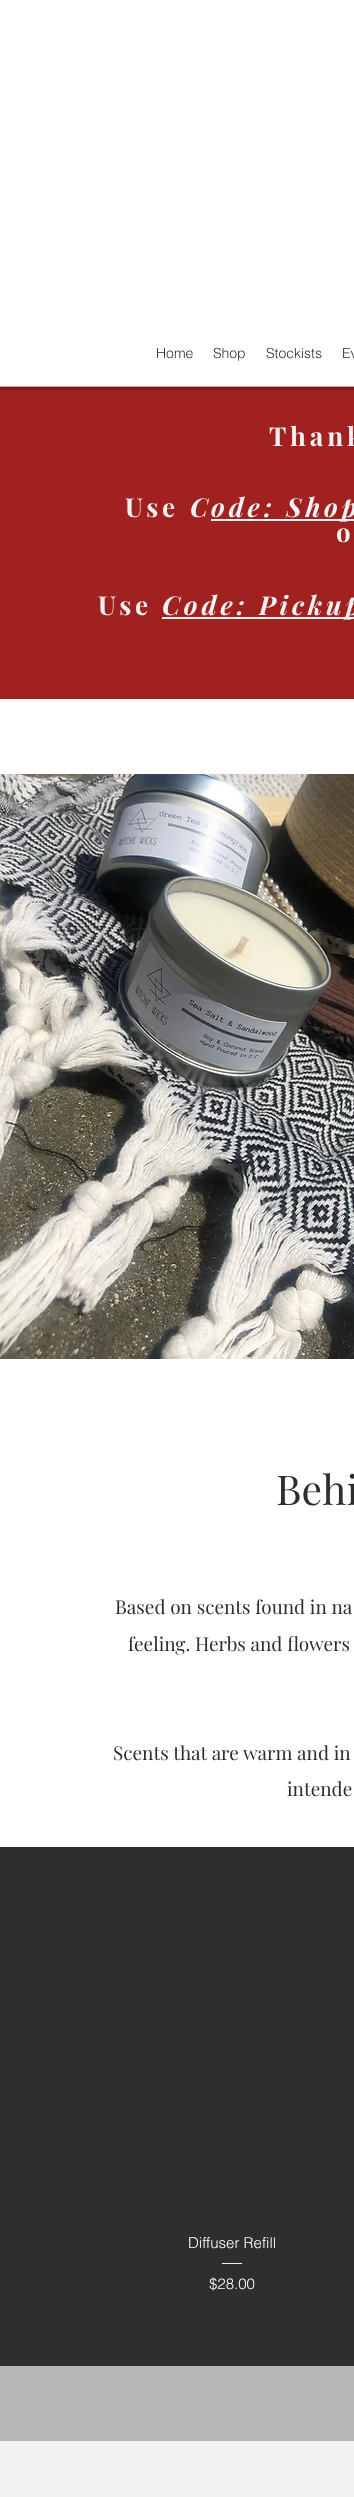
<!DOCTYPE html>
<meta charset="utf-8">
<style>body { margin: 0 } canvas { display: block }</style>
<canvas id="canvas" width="354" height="2497"></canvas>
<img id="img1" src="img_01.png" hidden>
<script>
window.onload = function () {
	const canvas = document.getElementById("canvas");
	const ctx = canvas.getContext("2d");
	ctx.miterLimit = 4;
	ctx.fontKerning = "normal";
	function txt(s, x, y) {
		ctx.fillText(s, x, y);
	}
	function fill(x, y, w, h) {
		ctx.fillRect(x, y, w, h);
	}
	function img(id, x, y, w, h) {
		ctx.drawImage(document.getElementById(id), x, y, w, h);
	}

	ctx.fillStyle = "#FFFFFF";
	fill(0, 0, 354, 2497);
	ctx.fillStyle = "#A12020";
	fill(0, 387, 354, 312);
	ctx.fillStyle = "#D9A6A6";
	fill(0, 386, 354, 1);
	ctx.save();
	ctx.beginPath();
	ctx.rect(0, 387, 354, 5);
	ctx.clip();
	ctx.fillStyle = "rgba(0, 0, 0, 0.7)";
	ctx.filter = "blur(2.5px)";
	ctx.beginPath();
	ctx.rect(0, 0, 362, 387);
	ctx.fill();
	ctx.filter = "none";
	ctx.restore();
	ctx.fillStyle = "#F2F2F2";
	fill(211, 519, 143, 2);
	fill(162, 617, 192, 2);
	img("img1", 0, 774, 354, 585);
	ctx.fillStyle = "#2E2E2E";
	fill(0, 1847, 354, 519);
	ctx.fillStyle = "#F2F2F2";
	fill(222, 2263, 20, 1);
	ctx.fillStyle = "#B6B6B6";
	fill(0, 2366, 354, 75);
	ctx.fillStyle = "#F2F2F2";
	fill(0, 2441, 354, 56);
	ctx.font = "300 14px helvetica";
	ctx.fillStyle = "#2E2E2E";
	txt("Home", 156, 358);
	txt("Shop", 213, 358);
	txt("Stockists", 266, 358);
	txt("Ev", 342, 358);
	ctx.letterSpacing = "3.9px";
	ctx.font = "bold 26px Playfair Display";
	ctx.fillStyle = "#F2F2F2";
	txt("Thank", 269, 446);
	txt("Use", 125, 517);
	ctx.font = "italic bold 26px Playfair Display";
	txt("C", 190, 517);
	txt("ode: Shop", 211, 517);
	ctx.font = "bold 26px Playfair Display";
	txt("o", 336, 542);
	txt("Use", 98, 615);
	ctx.font = "italic bold 26px Playfair Display";
	txt("Code: Pickup", 162, 615);
	ctx.letterSpacing = "0px";
	ctx.font = "41px Playfair Display";
	ctx.fillStyle = "#2E2E2E";
	txt("Behi", 276, 1505);
	ctx.font = "19px Playfair Display";
	txt("Based on scents found in na", 115, 1614);
	txt("feeling. Herbs and flowers", 128, 1651);
	txt("Scents that are warm and in", 113, 1760);
	txt("intende", 287, 1796);
	ctx.font = "300 15px helvetica";
	ctx.fillStyle = "#FFFFFF";
	txt("Diffuser Refill", 188, 2248);
	txt("$28.00", 209, 2289);
};
</script>
